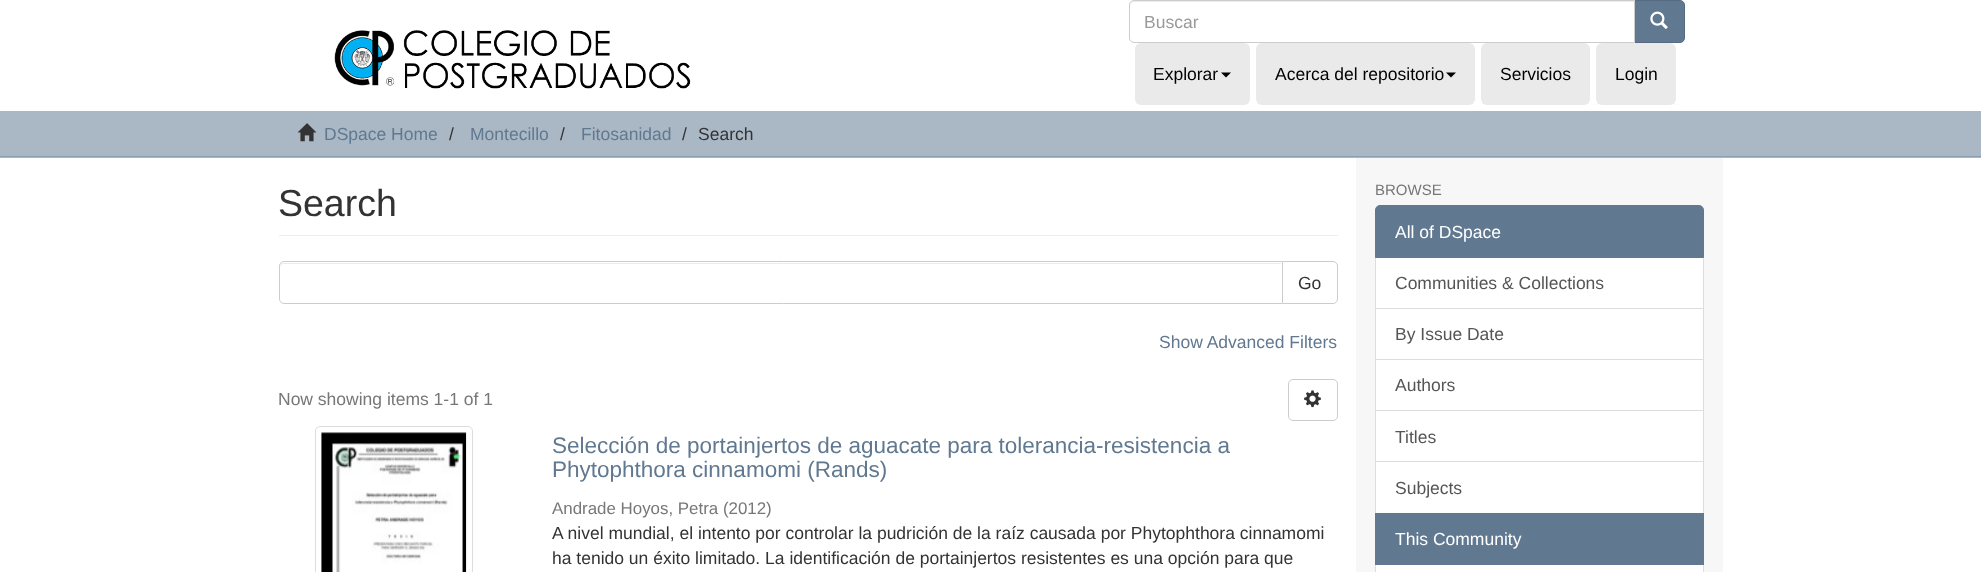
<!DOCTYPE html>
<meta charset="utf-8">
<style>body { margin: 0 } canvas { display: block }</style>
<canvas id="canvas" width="1981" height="572"></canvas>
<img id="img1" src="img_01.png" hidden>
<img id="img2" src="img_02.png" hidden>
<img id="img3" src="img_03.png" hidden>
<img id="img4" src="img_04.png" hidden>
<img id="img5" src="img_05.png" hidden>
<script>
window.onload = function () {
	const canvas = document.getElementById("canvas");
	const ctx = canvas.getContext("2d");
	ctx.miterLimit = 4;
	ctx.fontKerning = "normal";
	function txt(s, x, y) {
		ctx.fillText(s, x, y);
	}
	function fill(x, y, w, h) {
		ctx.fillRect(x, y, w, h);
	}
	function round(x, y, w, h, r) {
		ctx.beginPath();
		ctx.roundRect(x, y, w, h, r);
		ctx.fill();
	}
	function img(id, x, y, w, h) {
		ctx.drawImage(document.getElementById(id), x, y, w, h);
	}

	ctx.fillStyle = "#FFFFFF";
	fill(0, 0, 1981, 572);
	img("img1", 334, 30, 357, 59);
	ctx.fillStyle = "#607890";
	ctx.beginPath();
	ctx.roundRect(1634.5, 0.5, 50, 42, [0, 4.5, 4.5, 0]);
	ctx.fill();
	ctx.strokeStyle = "#566B81";
	ctx.stroke();
	ctx.fillStyle = "#FFFFFF";
	ctx.beginPath();
	ctx.roundRect(1129, 0, 506, 43, [5, 0, 0, 5]);
	ctx.fill();
	ctx.fillStyle = "#ECECEC";
	ctx.beginPath();
	ctx.moveTo(1134, 2);
	ctx.lineTo(1634, 2);
	ctx.lineTo(1634, 1);
	ctx.lineTo(1134, 1);
	ctx.bezierCurveTo(1131, 1, 1130, 3, 1130, 6);
	ctx.bezierCurveTo(1130, 4, 1132, 2, 1134, 2);
	ctx.closePath();
	ctx.fill();
	ctx.beginPath();
	ctx.roundRect(1129.5, 0.5, 505, 42, [4.5, 0, 0, 4.5]);
	ctx.strokeStyle = "#CCCCCC";
	ctx.stroke();
	img("img2", 1650, 11, 18, 18);
	ctx.fillStyle = "#EAEAEA";
	round(1135, 43, 115, 62, 6);
	ctx.fillStyle = "#000000";
	ctx.beginPath();
	ctx.moveTo(1221, 72.5);
	ctx.lineTo(1231, 72.5);
	ctx.lineTo(1226, 77.5);
	ctx.closePath();
	ctx.fill();
	ctx.fillStyle = "#EAEAEA";
	round(1256, 43, 219, 62, 6);
	ctx.fillStyle = "#000000";
	ctx.beginPath();
	ctx.moveTo(1446, 72.5);
	ctx.lineTo(1456, 72.5);
	ctx.lineTo(1451, 77.5);
	ctx.closePath();
	ctx.fill();
	ctx.fillStyle = "#EAEAEA";
	round(1481, 43, 109, 62, 6);
	round(1596, 43, 80, 62, 6);
	ctx.fillStyle = "#AAB8C6";
	fill(0, 111, 1981, 47);
	ctx.fillStyle = "#8B9EB2";
	fill(0, 156, 1981, 1);
	img("img3", 297, 123, 20, 19);
	ctx.fillStyle = "#F7F7F7";
	fill(1356, 158, 367, 414);
	ctx.fillStyle = "#EEEEEE";
	fill(279, 235, 1059, 1);
	ctx.beginPath();
	ctx.roundRect(1281.5, 261.5, 56, 42, [0, 4.5, 4.5, 0]);
	ctx.stroke();
	ctx.fillStyle = "#FFFFFF";
	ctx.beginPath();
	ctx.roundRect(279, 261, 1004, 43, [5, 0, 0, 5]);
	ctx.fill();
	ctx.fillStyle = "#ECECEC";
	ctx.beginPath();
	ctx.moveTo(284, 264);
	ctx.lineTo(1281, 264);
	ctx.lineTo(1281, 263);
	ctx.lineTo(284, 263);
	ctx.bezierCurveTo(281, 263, 280, 265, 280, 268);
	ctx.bezierCurveTo(280, 265, 282, 264, 284, 264);
	ctx.closePath();
	ctx.fill();
	ctx.beginPath();
	ctx.roundRect(279.5, 261.5, 1003, 42, [4.5, 0, 0, 4.5]);
	ctx.stroke();
	ctx.beginPath();
	ctx.roundRect(1288.5, 379.5, 49, 41, 4.5);
	ctx.stroke();
	img("img4", 1304, 390, 17, 18);
	ctx.beginPath();
	ctx.roundRect(315.5, 426.5, 157, 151, 4.5);
	ctx.strokeStyle = "#DDDDDD";
	ctx.stroke();
	img("img5", 321, 432, 146, 140);
	ctx.fillStyle = "#FFFFFF";
	fill(1376, 258, 327, 50);
	ctx.strokeRect(1375.5, 256.5, 328, 52);
	ctx.fillStyle = "#607890";
	ctx.beginPath();
	ctx.roundRect(1375.5, 205.5, 328, 52, [4.5, 4.5, 0, 0]);
	ctx.fill();
	ctx.strokeStyle = "#607890";
	ctx.stroke();
	ctx.fillStyle = "#FFFFFF";
	ctx.beginPath();
	ctx.rect(1375.5, 308.5, 328, 51);
	ctx.fill();
	ctx.strokeStyle = "#DDDDDD";
	ctx.stroke();
	ctx.beginPath();
	ctx.rect(1375.5, 359.5, 328, 51);
	ctx.fill();
	ctx.stroke();
	fill(1376, 411, 327, 50);
	ctx.strokeRect(1375.5, 410.5, 328, 52);
	ctx.beginPath();
	ctx.rect(1375.5, 461.5, 328, 52);
	ctx.fill();
	ctx.stroke();
	ctx.beginPath();
	ctx.rect(1375.5, 564.5, 328, 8);
	ctx.fill();
	ctx.stroke();
	ctx.fillStyle = "#607890";
	fill(1375, 513, 329, 52);
	ctx.font = "17.5px Liberation Sans";
	ctx.fillStyle = "#999999";
	txt("Buscar", 1144, 28);
	ctx.fillStyle = "#000000";
	txt("Explorar", 1153, 80);
	txt("Acerca del repositorio", 1275, 80);
	txt("Servicios", 1500, 80);
	txt("Login", 1615, 80);
	ctx.fillStyle = "#607890";
	txt("DSpace Home", 324, 140);
	ctx.fillStyle = "#333333";
	txt("/", 449, 140);
	ctx.fillStyle = "#607890";
	txt("Montecillo", 470, 140);
	ctx.fillStyle = "#333333";
	txt("/", 560, 140);
	ctx.fillStyle = "#607890";
	txt("Fitosanidad", 581, 140);
	ctx.fillStyle = "#333333";
	txt("/", 682, 140);
	txt("Search", 698, 140);
	ctx.font = "37.5px Liberation Sans";
	txt("Search", 278, 216);
	ctx.font = "17.5px Liberation Sans";
	txt("Go", 1298, 289);
	ctx.fillStyle = "#607890";
	txt("Show Advanced Filters", 1159, 348);
	ctx.fillStyle = "#777777";
	txt("Now showing items 1-1 of 1", 278, 405);
	ctx.font = "22.5px Liberation Sans";
	ctx.fillStyle = "#607890";
	txt("Selección de portainjertos de aguacate para tolerancia-resistencia a", 552, 453);
	txt("Phytophthora cinnamomi (Rands)", 552, 477);
	ctx.font = "16.9px Liberation Sans";
	ctx.fillStyle = "#777777";
	txt("Andrade Hoyos, Petra (2012)", 552, 514);
	ctx.font = "17.5px Liberation Sans";
	ctx.fillStyle = "#333333";
	txt("A nivel mundial, el intento por controlar la pudrición de la raíz causada por Phytophthora cinnamomi", 552, 539);
	txt("ha tenido un éxito limitado. La identificación de portainjertos resistentes es una opción para que", 552, 564);
	ctx.font = "15px Liberation Sans";
	ctx.fillStyle = "#777777";
	txt("BROWSE", 1375, 195);
	ctx.font = "17.5px Liberation Sans";
	ctx.fillStyle = "#FFFFFF";
	txt("All of DSpace", 1395, 238);
	ctx.fillStyle = "#555555";
	txt("Communities & Collections", 1395, 289);
	txt("By Issue Date", 1395, 340);
	txt("Authors", 1395, 391);
	txt("Titles", 1395, 443);
	txt("Subjects", 1395, 494);
	ctx.fillStyle = "#FFFFFF";
	txt("This Community", 1395, 545);
};
</script>
